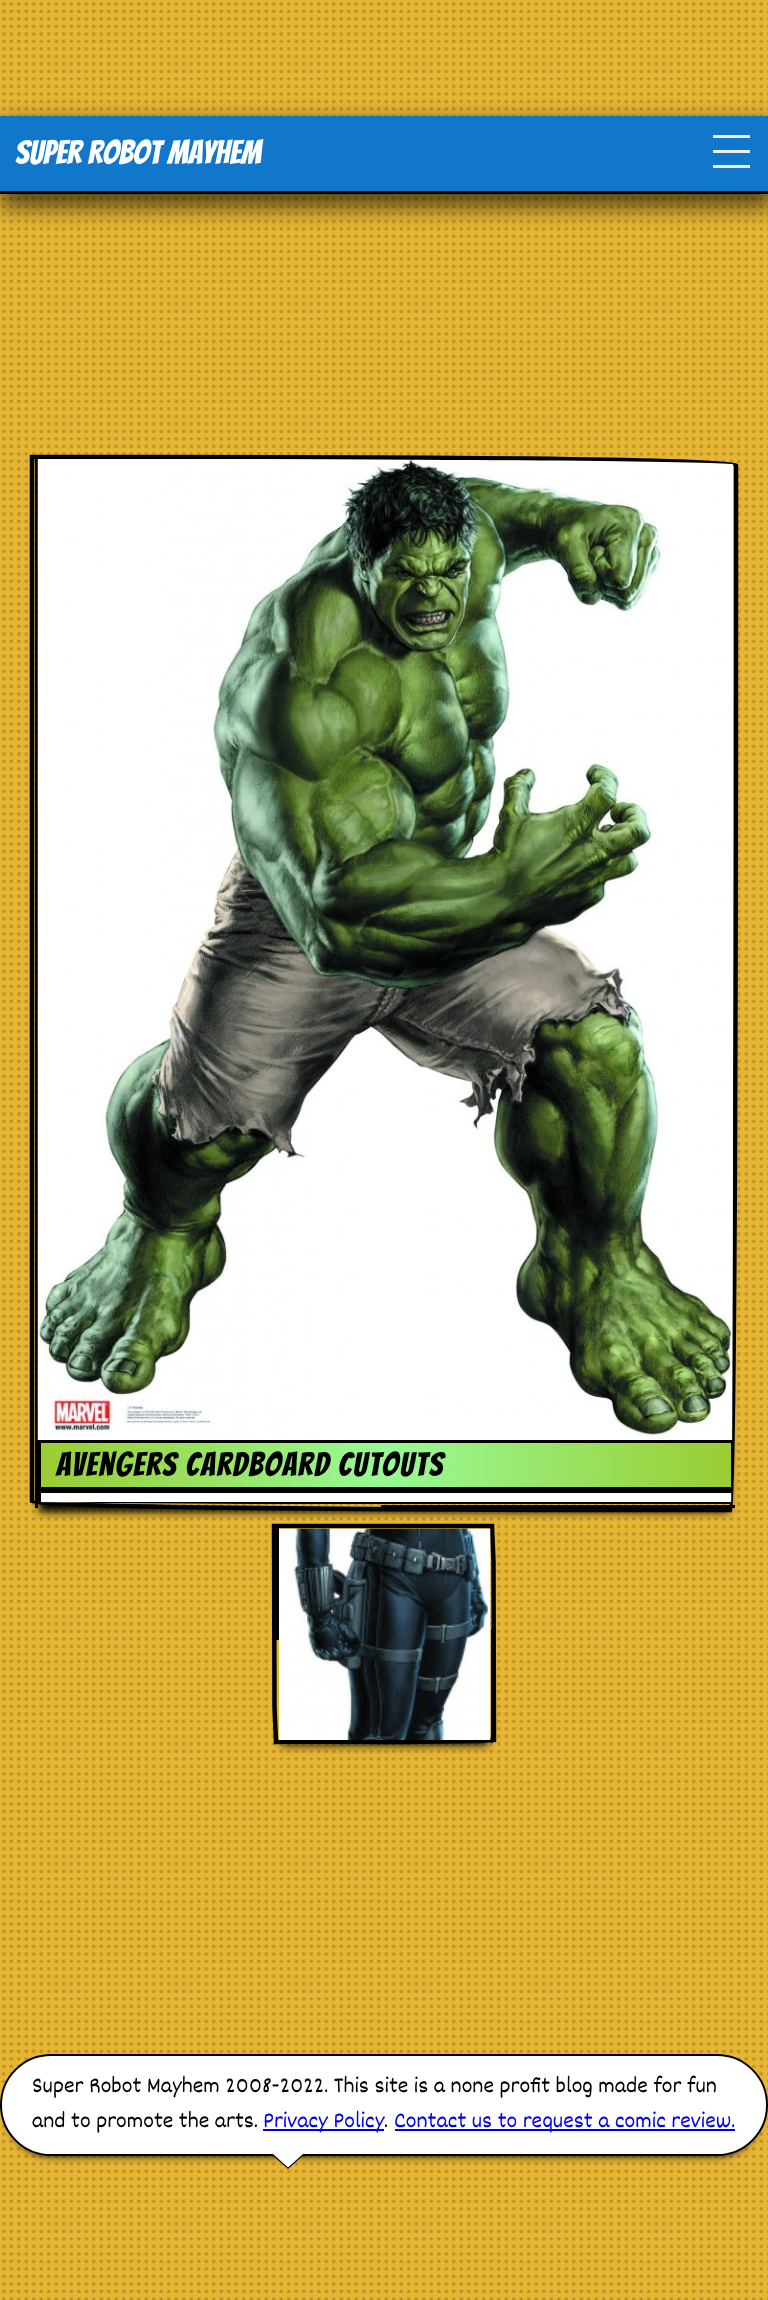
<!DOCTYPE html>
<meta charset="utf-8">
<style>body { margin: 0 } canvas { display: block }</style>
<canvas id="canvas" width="768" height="2300"></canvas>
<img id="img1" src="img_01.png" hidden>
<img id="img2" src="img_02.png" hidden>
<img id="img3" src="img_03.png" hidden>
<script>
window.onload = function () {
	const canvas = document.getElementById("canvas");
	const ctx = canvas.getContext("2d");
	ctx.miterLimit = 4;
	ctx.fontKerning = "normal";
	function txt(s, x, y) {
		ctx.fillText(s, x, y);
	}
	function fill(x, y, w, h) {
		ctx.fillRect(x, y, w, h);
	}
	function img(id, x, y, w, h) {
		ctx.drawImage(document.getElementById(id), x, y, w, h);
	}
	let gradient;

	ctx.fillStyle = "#E6B633";
	fill(0, 0, 768, 2300);
	img("img1", 1, 2, 767, 2298);
	ctx.fillStyle = "rgba(0, 0, 0, 0.62)";
	ctx.filter = "blur(11px)";
	ctx.beginPath();
	ctx.rect(0, 123, 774, 84);
	ctx.fill();
	ctx.filter = "none";
	ctx.fillStyle = "#1177CA";
	fill(0, 116, 768, 75);
	ctx.fillStyle = "#000000";
	fill(0, 191, 768, 3);
	ctx.fillStyle = "#EEEEEE";
	fill(713, 135, 37, 3);
	fill(713, 150, 37, 3);
	fill(713, 165, 37, 3);
	ctx.save();
	ctx.beginPath();
	ctx.moveTo(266, 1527);
	ctx.lineTo(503, 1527);
	ctx.lineTo(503, 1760);
	ctx.lineTo(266, 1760);
	ctx.closePath();
	ctx.moveTo(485, 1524);
	ctx.lineTo(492, 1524);
	ctx.bezierCurveTo(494.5, 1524, 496.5, 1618, 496.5, 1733.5);
	ctx.lineTo(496.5, 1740);
	ctx.bezierCurveTo(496.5, 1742.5, 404, 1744.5, 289.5, 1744.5);
	ctx.lineTo(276, 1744.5);
	ctx.bezierCurveTo(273.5, 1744.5, 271.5, 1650.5, 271.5, 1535);
	ctx.lineTo(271.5, 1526);
	ctx.bezierCurveTo(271.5, 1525, 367, 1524, 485, 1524);
	ctx.closePath();
	ctx.clip("evenodd");
	ctx.fillStyle = "#000000";
	ctx.filter = "blur(4.5px)";
	ctx.beginPath();
	ctx.rect(281, 1542, 207, 203);
	ctx.fill();
	ctx.filter = "none";
	ctx.restore();
	ctx.beginPath();
	ctx.moveTo(485, 1526);
	ctx.lineTo(492, 1526);
	ctx.lineTo(493.5, 1561.5);
	ctx.lineTo(494, 1740);
	ctx.lineTo(478, 1741);
	ctx.lineTo(404, 1742);
	ctx.lineTo(276, 1742);
	ctx.lineTo(274.5, 1707);
	ctx.lineTo(274, 1526);
	ctx.closePath();
	ctx.strokeStyle = "#000000";
	ctx.lineWidth = 4.5;
	ctx.stroke();
	ctx.fillStyle = "#000000";
	fill(276, 1526, 3, 114);
	ctx.save();
	ctx.beginPath();
	ctx.moveTo(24, 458);
	ctx.lineTo(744, 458);
	ctx.lineTo(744, 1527);
	ctx.lineTo(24, 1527);
	ctx.closePath();
	ctx.moveTo(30, 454.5);
	ctx.lineTo(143.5, 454.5);
	ctx.bezierCurveTo(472, 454.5, 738, 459, 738, 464.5);
	ctx.lineTo(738, 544.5);
	ctx.bezierCurveTo(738, 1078.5, 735, 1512, 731.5, 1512);
	ctx.bezierCurveTo(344, 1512, 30, 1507.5, 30, 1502);
	ctx.closePath();
	ctx.clip("evenodd");
	ctx.filter = "blur(4.5px)";
	ctx.beginPath();
	ctx.roundRect(39, 473, 690, 1039, 1);
	ctx.fill();
	ctx.filter = "none";
	ctx.restore();
	gradient = ctx.createRadialGradient(386, 982, 0, 386, 982, 628);
	gradient.addColorStop(0, "#FFFF00");
	gradient.addColorStop(1, "#FFA500");
	ctx.fillStyle = gradient;
	ctx.beginPath();
	ctx.moveTo(38, 459);
	ctx.lineTo(144, 459);
	ctx.bezierCurveTo(469, 459, 734, 461, 734, 464);
	ctx.lineTo(734, 544);
	ctx.bezierCurveTo(734, 1075, 733, 1504, 731, 1504);
	ctx.bezierCurveTo(348, 1504, 38, 1503, 38, 1502);
	ctx.closePath();
	ctx.fill();
	ctx.beginPath();
	ctx.moveTo(32, 457);
	ctx.lineTo(143.5, 457);
	ctx.bezierCurveTo(470.5, 457, 736, 460, 736, 464.5);
	ctx.lineTo(736, 544.5);
	ctx.bezierCurveTo(736, 1077.5, 734, 1510, 731.5, 1510);
	ctx.bezierCurveTo(345, 1510, 32, 1506.5, 32, 1502);
	ctx.closePath();
	ctx.stroke();
	ctx.fillStyle = "#000000";
	fill(381, 1505, 354, 3);
	fill(35, 455, 3, 1053);
	img("img2", 37, 459, 697, 981);
	gradient = ctx.createRadialGradient(386, 1465, 0, 386, 1465, 346);
	gradient.addColorStop(0, "#98FB98");
	gradient.addColorStop(1, "#9ACD32");
	ctx.fillStyle = gradient;
	fill(41, 1443, 690, 44);
	ctx.fillStyle = "#000000";
	ctx.beginPath();
	ctx.moveTo(38, 1440);
	ctx.lineTo(732, 1440);
	ctx.lineTo(732, 1490);
	ctx.lineTo(38, 1490);
	ctx.closePath();
	ctx.moveTo(41, 1443);
	ctx.lineTo(41, 1487);
	ctx.lineTo(731, 1487);
	ctx.lineTo(731, 1443);
	ctx.closePath();
	ctx.fill("evenodd");
	ctx.fillStyle = "#FFFFFF";
	ctx.beginPath();
	ctx.moveTo(38, 1490);
	ctx.lineTo(732, 1490);
	ctx.lineTo(731, 1504);
	ctx.lineTo(250, 1504);
	ctx.lineTo(100, 1503);
	ctx.lineTo(38, 1502);
	ctx.closePath();
	ctx.fill();
	ctx.fillStyle = "#000000";
	ctx.beginPath();
	ctx.moveTo(38, 1490);
	ctx.lineTo(732, 1490);
	ctx.lineTo(731, 1504);
	ctx.lineTo(250, 1504);
	ctx.lineTo(100, 1503);
	ctx.lineTo(38, 1502);
	ctx.closePath();
	ctx.moveTo(41, 1493);
	ctx.lineTo(41, 1502);
	ctx.lineTo(731, 1502);
	ctx.lineTo(731, 1493);
	ctx.closePath();
	ctx.fill("evenodd");
	img("img3", 279, 1528, 212, 212);
	fill(491, 1629, 2, 114);
	ctx.filter = "blur(4.5px)";
	ctx.beginPath();
	ctx.roundRect(9, 2072, 750, 84, 42);
	ctx.fill();
	ctx.filter = "none";
	ctx.fillStyle = "#FFFFFF";
	ctx.beginPath();
	ctx.roundRect(1, 2055, 766, 100, 50);
	ctx.fill();
	ctx.strokeStyle = "#020202";
	ctx.lineWidth = 2;
	ctx.stroke();
	ctx.fillStyle = "#0000EE";
	fill(263, 2129, 121, 2);
	fill(395, 2129, 340, 2);
	ctx.fillStyle = "#020202";
	ctx.beginPath();
	ctx.moveTo(273, 2155.5);
	ctx.lineTo(303, 2155.5);
	ctx.lineTo(288, 2169);
	ctx.closePath();
	ctx.fill();
	ctx.fillStyle = "#FFFFFF";
	ctx.beginPath();
	ctx.moveTo(273, 2154);
	ctx.lineTo(303, 2154);
	ctx.lineTo(288, 2167.5);
	ctx.closePath();
	ctx.fill();
	ctx.font = "33px Bangers";
	txt("Super Robot Mayhem", 15, 164);
	ctx.letterSpacing = "1.5px";
	ctx.fillStyle = "#000000";
	txt("Avengers Cardboard Cutouts", 56, 1476);
	ctx.letterSpacing = "0px";
	ctx.font = "24px Dekko";
	txt("Super Robot Mayhem 2008-2022. This site is a none profit blog made for fun", 32, 2092);
	txt("and to promote the arts.", 32, 2127);
	ctx.fillStyle = "#0000EE";
	txt("Privacy Policy", 263, 2127);
	ctx.fillStyle = "#000000";
	txt(".", 384, 2127);
	ctx.fillStyle = "#0000EE";
	txt("Contact us to request a comic review.", 394, 2127);
};
</script>
